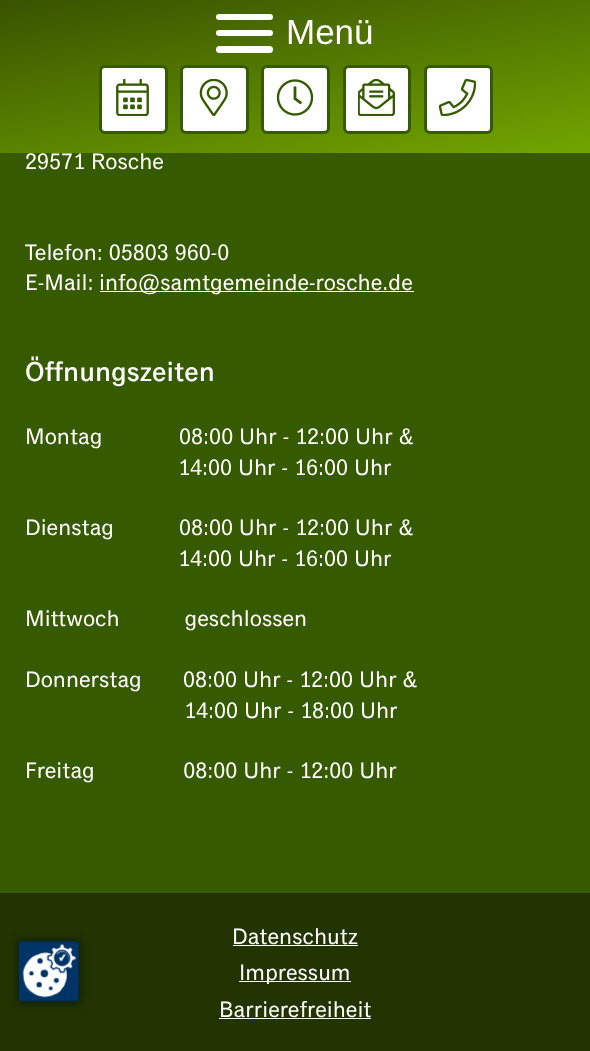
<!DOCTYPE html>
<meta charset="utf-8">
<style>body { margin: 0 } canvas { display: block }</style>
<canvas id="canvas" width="590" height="1051"></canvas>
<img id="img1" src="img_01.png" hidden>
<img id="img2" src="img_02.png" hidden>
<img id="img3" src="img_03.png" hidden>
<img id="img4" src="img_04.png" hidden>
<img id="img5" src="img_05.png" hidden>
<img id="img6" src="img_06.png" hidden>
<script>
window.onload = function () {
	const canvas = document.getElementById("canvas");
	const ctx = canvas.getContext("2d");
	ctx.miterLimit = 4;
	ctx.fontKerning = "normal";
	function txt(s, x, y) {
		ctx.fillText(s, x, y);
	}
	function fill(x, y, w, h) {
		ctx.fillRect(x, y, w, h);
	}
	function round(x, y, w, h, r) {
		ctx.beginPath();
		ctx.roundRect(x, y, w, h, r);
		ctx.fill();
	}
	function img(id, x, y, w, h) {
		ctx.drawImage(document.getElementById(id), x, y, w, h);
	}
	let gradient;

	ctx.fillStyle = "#365A00";
	fill(0, 0, 590, 1051);
	gradient = ctx.createLinearGradient(317, 201, 273, -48);
	gradient.addColorStop(0, "#72A500");
	gradient.addColorStop(1, "#395300");
	ctx.fillStyle = gradient;
	fill(0, 0, 590, 153);
	ctx.fillStyle = "#FFFFFF";
	round(216, 14, 57, 6, 3);
	round(216, 30, 57, 6, 3);
	round(216, 46, 57, 7, 3.5);
	ctx.beginPath();
	ctx.roundRect(100.5, 66.5, 66, 66, 4.5);
	ctx.fill();
	ctx.strokeStyle = "#365A00";
	ctx.lineWidth = 3;
	ctx.stroke();
	img("img1", 116, 79, 33, 37);
	ctx.beginPath();
	ctx.roundRect(181.5, 66.5, 66, 66, 4.5);
	ctx.fill();
	ctx.stroke();
	img("img2", 199, 79, 29, 37);
	ctx.beginPath();
	ctx.roundRect(262.5, 66.5, 66, 66, 4.5);
	ctx.fill();
	ctx.stroke();
	img("img3", 276, 79, 38, 37);
	ctx.beginPath();
	ctx.roundRect(344.5, 66.5, 65, 66, 4.5);
	ctx.fill();
	ctx.stroke();
	img("img4", 358, 79, 37, 37);
	ctx.beginPath();
	ctx.roundRect(425.5, 66.5, 66, 66, 4.5);
	ctx.fill();
	ctx.stroke();
	img("img5", 439, 79, 37, 37);
	fill(100, 291, 314, 1);
	ctx.fillStyle = "#213402";
	fill(0, 893, 590, 158);
	ctx.fillStyle = "#FFFFFF";
	fill(233, 945, 125, 1);
	fill(239, 981, 112, 1);
	fill(219, 1018, 152, 1);
	ctx.fillStyle = "rgba(0, 0, 0, 0.5)";
	ctx.filter = "blur(4px)";
	ctx.beginPath();
	ctx.rect(18, 940, 62, 63);
	ctx.fill();
	ctx.filter = "none";
	img("img6", 18, 941, 61, 61);
	ctx.font = "35px Liberation Sans";
	ctx.fillStyle = "#FFFFFF";
	txt("Menü", 286, 44);
	ctx.font = "22.5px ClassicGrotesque";
	txt("29571 Rosche", 25, 169);
	txt("Telefon: 05803 960-0", 25, 260);
	txt("E-Mail:", 25, 290);
	txt("info@samtgemeinde-rosche.de", 99, 290);
	ctx.font = "500 27.5px ClassicGrotesque";
	txt("Öffnungszeiten", 25, 381);
	ctx.font = "22.5px ClassicGrotesque";
	txt("Montag             08:00 Uhr - 12:00 Uhr &", 25, 444);
	txt("14:00 Uhr - 16:00 Uhr", 178, 475);
	txt("Dienstag           08:00 Uhr - 12:00 Uhr &", 25, 535);
	txt("14:00 Uhr - 16:00 Uhr", 178, 566);
	txt("Mittwoch           geschlossen", 25, 626);
	txt("Donnerstag       08:00 Uhr - 12:00 Uhr &", 25, 687);
	txt("14:00 Uhr - 18:00 Uhr", 184, 718);
	txt("Freitag               08:00 Uhr - 12:00 Uhr", 25, 778);
	txt("Datenschutz", 232, 944);
	txt("Impressum", 239, 980);
	txt("Barrierefreiheit", 219, 1017);
};
</script>
